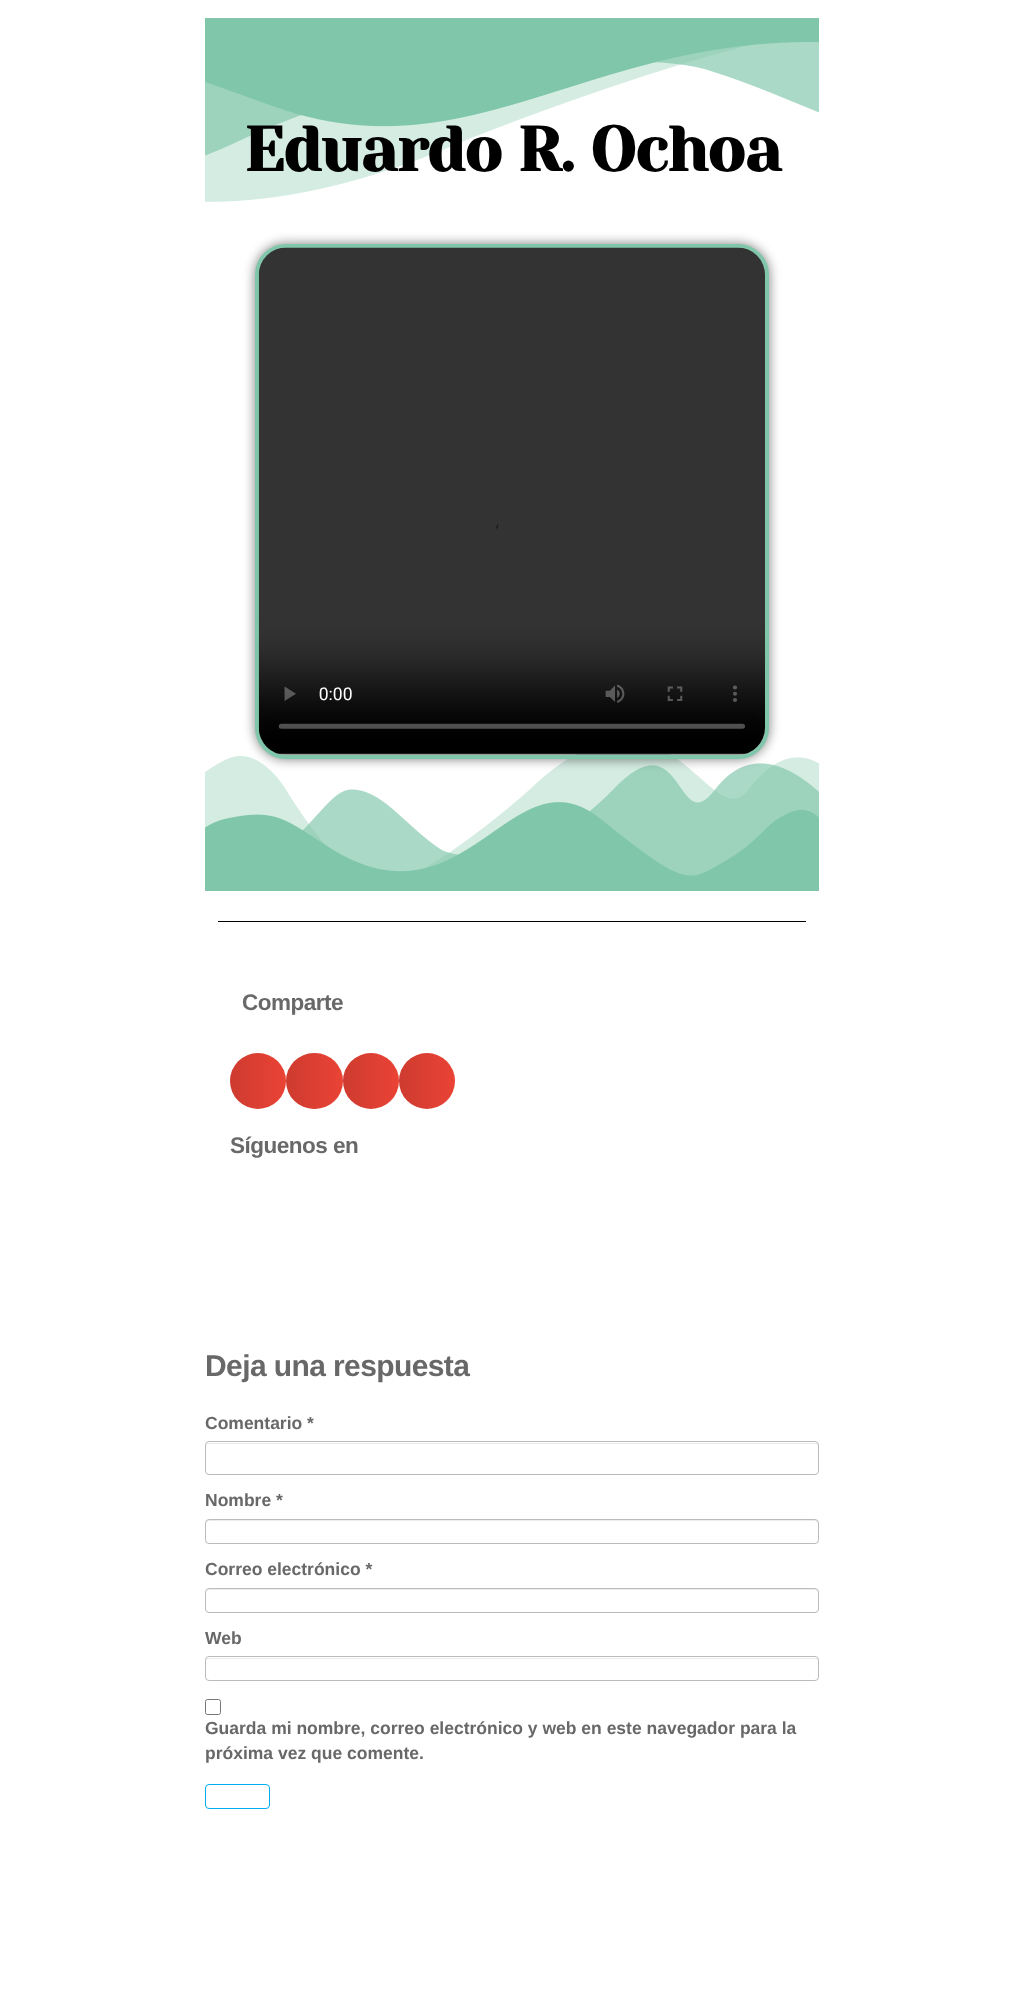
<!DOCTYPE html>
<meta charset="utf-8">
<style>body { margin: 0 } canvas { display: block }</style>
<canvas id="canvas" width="1023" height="1996"></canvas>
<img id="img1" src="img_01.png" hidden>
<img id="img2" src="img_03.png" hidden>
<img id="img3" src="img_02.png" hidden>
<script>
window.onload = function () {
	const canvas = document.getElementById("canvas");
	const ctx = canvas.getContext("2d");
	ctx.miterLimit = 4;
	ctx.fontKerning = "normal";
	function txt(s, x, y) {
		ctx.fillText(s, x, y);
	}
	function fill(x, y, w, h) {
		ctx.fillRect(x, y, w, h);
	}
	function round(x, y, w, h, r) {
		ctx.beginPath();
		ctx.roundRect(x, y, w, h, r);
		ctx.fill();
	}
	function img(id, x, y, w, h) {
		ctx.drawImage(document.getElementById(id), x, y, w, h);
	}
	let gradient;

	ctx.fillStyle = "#FFFFFF";
	fill(0, 0, 1023, 1996);
	img("img1", 205, 18, 614, 184);
	img("img2", 205, 754, 614, 137);
	ctx.fillStyle = "rgba(0, 0, 0, 0.5)";
	ctx.filter = "blur(6px)";
	ctx.beginPath();
	ctx.roundRect(255, 244, 514, 515, 31);
	ctx.fill();
	ctx.filter = "none";
	ctx.beginPath();
	ctx.roundRect(257, 246, 510, 511, 29);
	ctx.strokeStyle = "#80C6AA";
	ctx.lineWidth = 4;
	ctx.stroke();
	img("img3", 258, 247, 507, 507);
	ctx.fillStyle = "#000000";
	fill(218, 921, 588, 1);
	ctx.fillStyle = "#EA4335";
	ctx.beginPath();
	ctx.arc(258, 1081, 28, 0, Math.PI * 2);
	ctx.fill();
	gradient = ctx.createLinearGradient(230, 1081, 286, 1081);
	gradient.addColorStop(0, "rgba(0, 0, 0, 0.12)");
	gradient.addColorStop(1, "rgba(0, 0, 0, 0)");
	ctx.fillStyle = gradient;
	ctx.beginPath();
	ctx.arc(258, 1081, 28, 0, Math.PI * 2);
	ctx.fill();
	ctx.fillStyle = "#EA4335";
	round(286, 1053, 57, 56, 28);
	gradient = ctx.createLinearGradient(286, 1081, 343, 1081);
	gradient.addColorStop(0, "rgba(0, 0, 0, 0.12)");
	gradient.addColorStop(1, "rgba(0, 0, 0, 0)");
	ctx.fillStyle = gradient;
	round(286, 1053, 57, 56, 28);
	ctx.fillStyle = "#EA4335";
	ctx.beginPath();
	ctx.arc(371, 1081, 28, 0, Math.PI * 2);
	ctx.fill();
	gradient = ctx.createLinearGradient(343, 1081, 399, 1081);
	gradient.addColorStop(0, "rgba(0, 0, 0, 0.12)");
	gradient.addColorStop(1, "rgba(0, 0, 0, 0)");
	ctx.fillStyle = gradient;
	ctx.beginPath();
	ctx.arc(371, 1081, 28, 0, Math.PI * 2);
	ctx.fill();
	ctx.fillStyle = "#EA4335";
	ctx.beginPath();
	ctx.arc(427, 1081, 28, 0, Math.PI * 2);
	ctx.fill();
	gradient = ctx.createLinearGradient(399, 1081, 455, 1081);
	gradient.addColorStop(0, "rgba(0, 0, 0, 0.12)");
	gradient.addColorStop(1, "rgba(0, 0, 0, 0)");
	ctx.fillStyle = gradient;
	ctx.beginPath();
	ctx.arc(427, 1081, 28, 0, Math.PI * 2);
	ctx.fill();
	ctx.fillStyle = "#ECECEC";
	ctx.beginPath();
	ctx.moveTo(209, 1444);
	ctx.lineTo(815, 1444);
	ctx.bezierCurveTo(816, 1444, 818, 1445, 818, 1446);
	ctx.bezierCurveTo(818, 1444, 817, 1443, 816, 1443);
	ctx.lineTo(208, 1443);
	ctx.bezierCurveTo(207, 1443, 206, 1444, 206, 1446);
	ctx.bezierCurveTo(206, 1445, 207, 1444, 209, 1444);
	ctx.closePath();
	ctx.fill();
	ctx.beginPath();
	ctx.roundRect(205.5, 1441.5, 613, 33, 3.5);
	ctx.strokeStyle = "#BBBBBB";
	ctx.lineWidth = 1;
	ctx.stroke();
	ctx.beginPath();
	ctx.moveTo(209, 1521);
	ctx.lineTo(815, 1521);
	ctx.bezierCurveTo(816, 1521, 818, 1522, 818, 1524);
	ctx.lineTo(818, 1522);
	ctx.bezierCurveTo(818, 1521, 817, 1520, 816, 1520);
	ctx.lineTo(208, 1520);
	ctx.bezierCurveTo(207, 1520, 206, 1521, 206, 1522);
	ctx.lineTo(206, 1524);
	ctx.bezierCurveTo(206, 1522, 207, 1521, 209, 1521);
	ctx.closePath();
	ctx.fill();
	ctx.beginPath();
	ctx.roundRect(205.5, 1519.5, 613, 24, 3.5);
	ctx.stroke();
	ctx.beginPath();
	ctx.moveTo(209, 1590);
	ctx.lineTo(815, 1590);
	ctx.bezierCurveTo(816, 1590, 818, 1591, 818, 1592);
	ctx.bezierCurveTo(818, 1590, 817, 1589, 816, 1589);
	ctx.lineTo(208, 1589);
	ctx.bezierCurveTo(207, 1589, 206, 1590, 206, 1592);
	ctx.bezierCurveTo(206, 1591, 207, 1590, 209, 1590);
	ctx.closePath();
	ctx.fill();
	ctx.beginPath();
	ctx.roundRect(205.5, 1588.5, 613, 24, 3.5);
	ctx.stroke();
	ctx.beginPath();
	ctx.moveTo(209, 1659);
	ctx.lineTo(815, 1659);
	ctx.bezierCurveTo(816, 1659, 818, 1660, 818, 1661);
	ctx.bezierCurveTo(818, 1659, 817, 1658, 816, 1658);
	ctx.lineTo(208, 1658);
	ctx.bezierCurveTo(207, 1658, 206, 1659, 206, 1661);
	ctx.bezierCurveTo(206, 1660, 207, 1659, 209, 1659);
	ctx.closePath();
	ctx.fill();
	ctx.beginPath();
	ctx.roundRect(205.5, 1656.5, 613, 24, 3.5);
	ctx.stroke();
	ctx.beginPath();
	ctx.roundRect(205.5, 1699.5, 15, 15, 2);
	ctx.strokeStyle = "#767676";
	ctx.stroke();
	ctx.beginPath();
	ctx.roundRect(205.5, 1784.5, 64, 24, 3.5);
	ctx.strokeStyle = "#00AFF2";
	ctx.stroke();
	ctx.letterSpacing = "-1.25px";
	ctx.font = "bold 62.5px Yeseva One";
	ctx.fillStyle = "#000000";
	txt("Eduardo R. Ochoa", 244, 171);
	ctx.letterSpacing = "-0.5px";
	ctx.font = "bold 22.5px Liberation Sans";
	ctx.fillStyle = "#686868";
	txt("Comparte", 242, 1010);
	txt("Síguenos en", 230, 1153);
	ctx.letterSpacing = "-0.6px";
	ctx.font = "bold 30px Liberation Sans";
	txt("Deja una respuesta", 205, 1376);
	ctx.letterSpacing = "0px";
	ctx.font = "bold 17.5px Liberation Sans";
	txt("Comentario *", 205, 1429);
	txt("Nombre *", 205, 1506);
	txt("Correo electrónico *", 205, 1575);
	txt("Web", 205, 1644);
	txt("Guarda mi nombre, correo electrónico y web en este navegador para la", 205, 1734);
	txt("próxima vez que comente.", 205, 1759);
};
</script>
